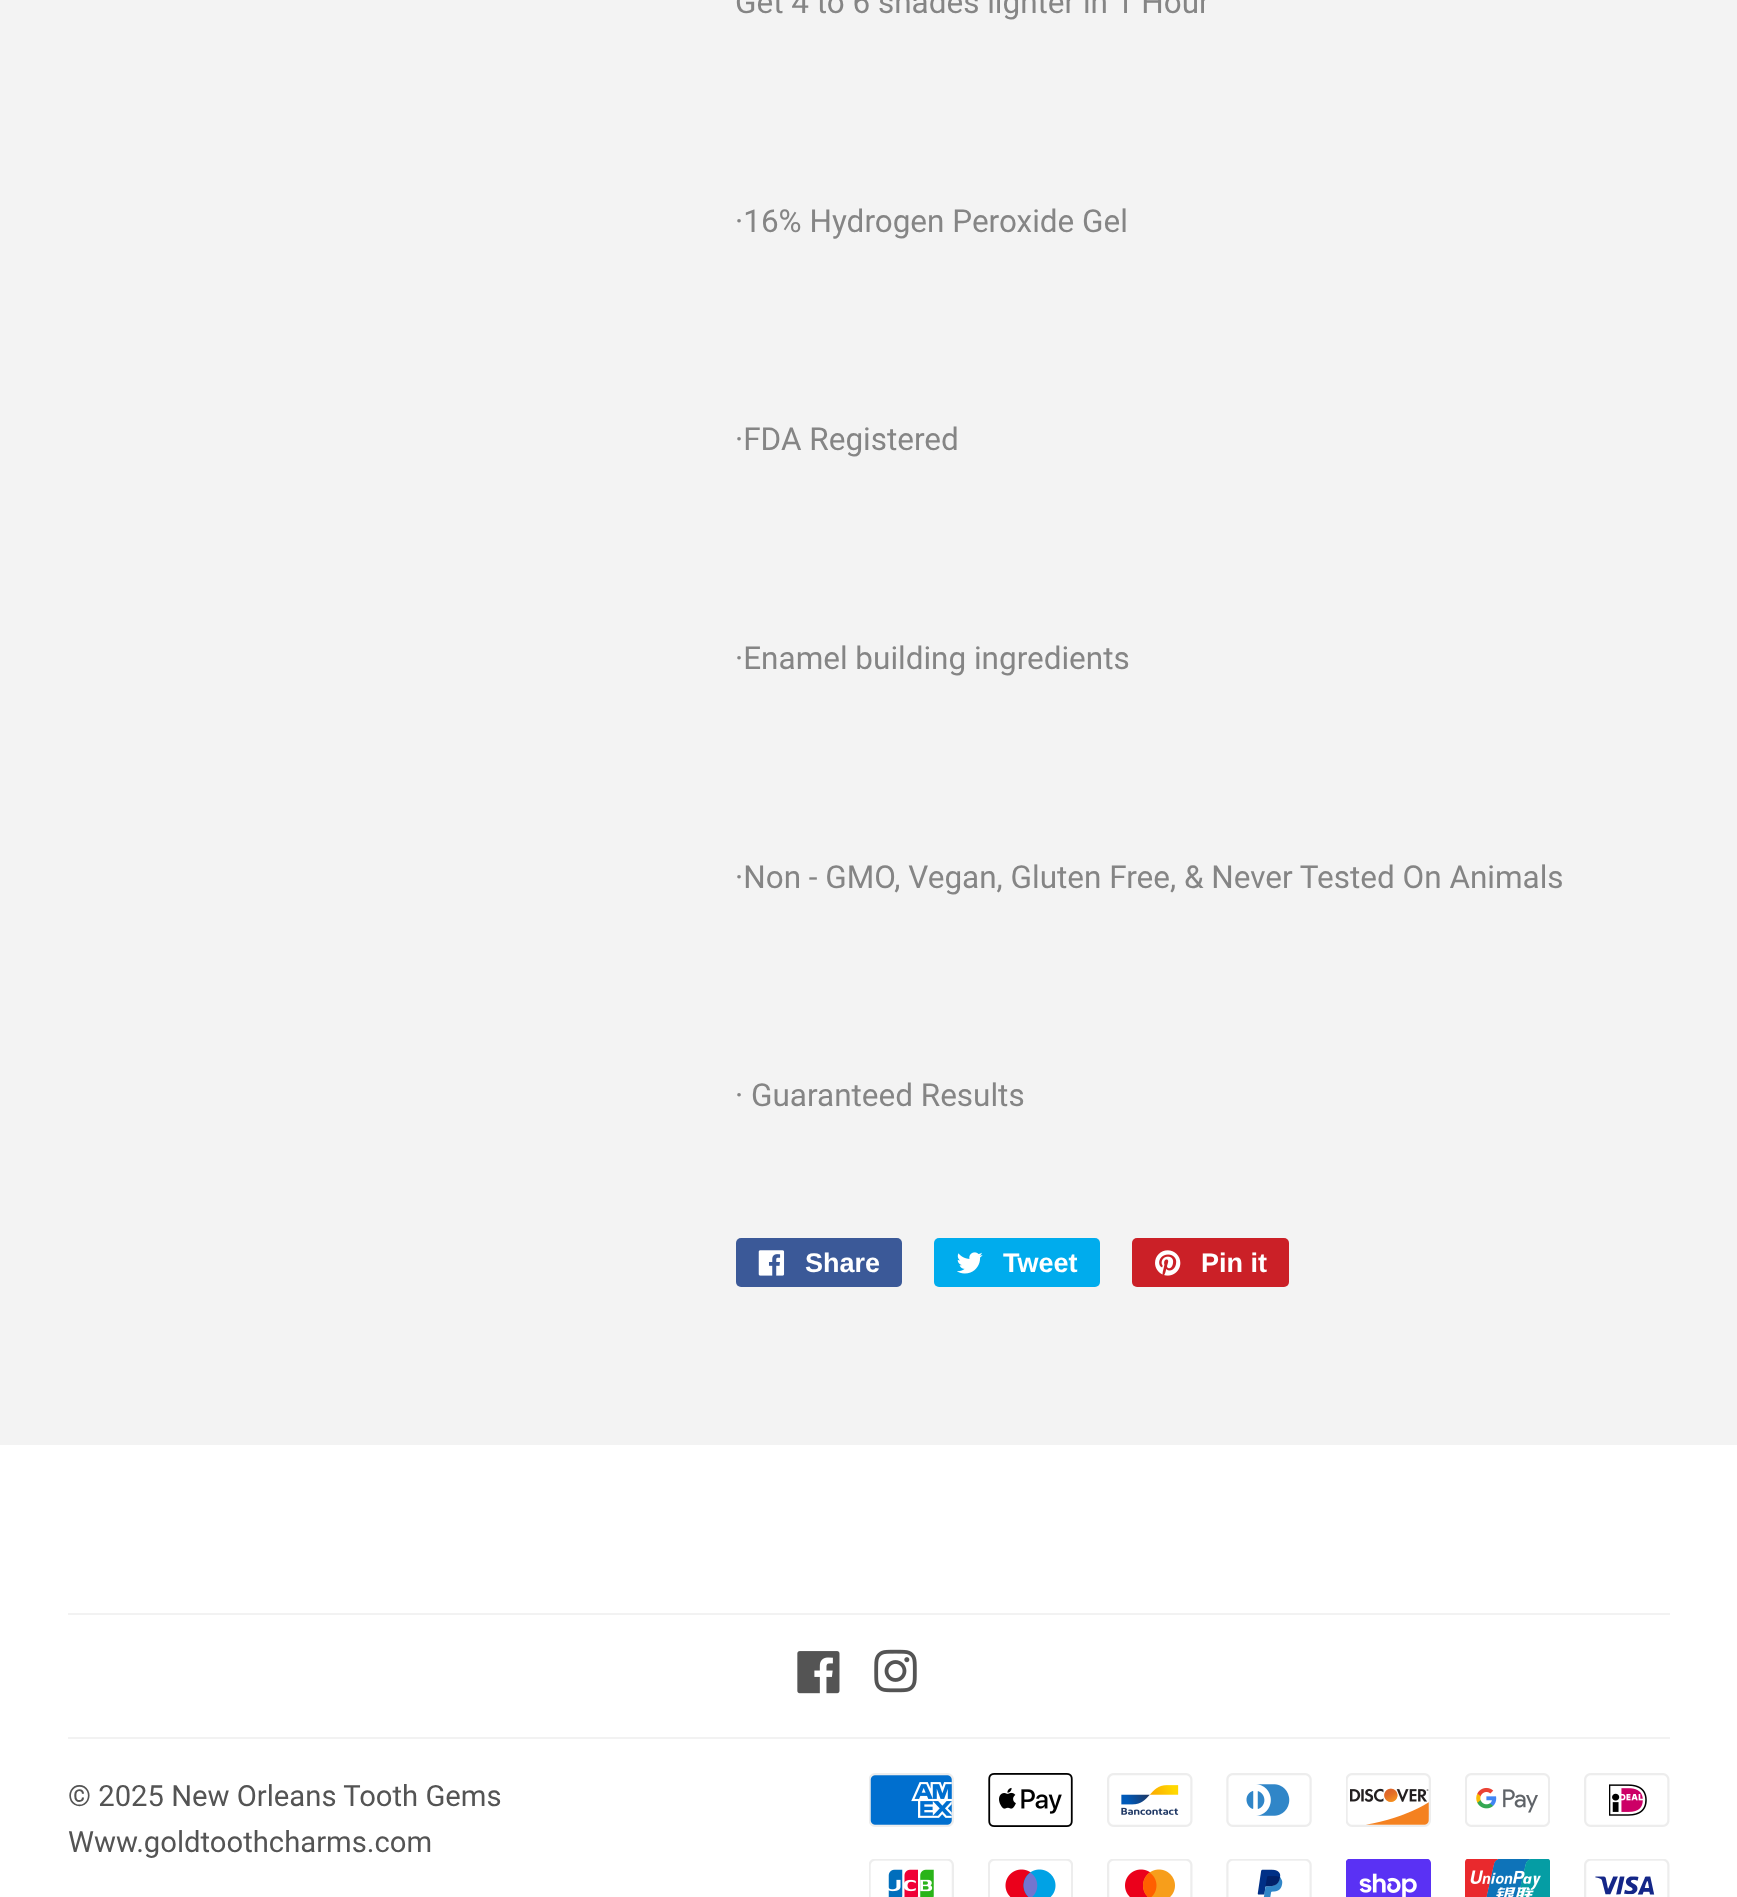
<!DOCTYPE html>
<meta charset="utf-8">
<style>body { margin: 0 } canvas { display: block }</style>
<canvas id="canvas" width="1737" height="1897"></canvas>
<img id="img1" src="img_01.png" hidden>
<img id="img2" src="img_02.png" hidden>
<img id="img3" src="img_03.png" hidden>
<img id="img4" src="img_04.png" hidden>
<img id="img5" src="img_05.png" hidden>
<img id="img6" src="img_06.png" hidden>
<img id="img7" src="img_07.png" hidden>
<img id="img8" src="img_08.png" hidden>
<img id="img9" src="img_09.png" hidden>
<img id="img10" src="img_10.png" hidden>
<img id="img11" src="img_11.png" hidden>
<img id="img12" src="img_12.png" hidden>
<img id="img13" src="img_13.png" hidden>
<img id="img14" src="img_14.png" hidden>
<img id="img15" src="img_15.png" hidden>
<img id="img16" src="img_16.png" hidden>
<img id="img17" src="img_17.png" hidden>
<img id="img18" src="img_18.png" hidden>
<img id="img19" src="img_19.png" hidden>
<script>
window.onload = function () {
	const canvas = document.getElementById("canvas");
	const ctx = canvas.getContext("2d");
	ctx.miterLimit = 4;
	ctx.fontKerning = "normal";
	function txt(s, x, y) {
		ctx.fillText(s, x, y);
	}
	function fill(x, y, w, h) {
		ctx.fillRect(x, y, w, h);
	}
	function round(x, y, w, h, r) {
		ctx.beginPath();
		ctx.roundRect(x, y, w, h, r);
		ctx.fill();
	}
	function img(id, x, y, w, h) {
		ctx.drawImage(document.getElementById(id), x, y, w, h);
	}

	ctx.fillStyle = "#F3F3F3";
	fill(0, 0, 1737, 1897);
	ctx.fillStyle = "#3B5998";
	round(736, 1238, 166, 49, 5);
	img("img1", 758, 1250, 27, 26);
	ctx.fillStyle = "#00ACED";
	round(934, 1238, 166, 49, 5);
	img("img2", 957, 1252, 26, 22);
	ctx.fillStyle = "#CB2027";
	round(1132, 1238, 157, 49, 5);
	img("img3", 1155, 1250, 26, 26);
	ctx.fillStyle = "#FFFFFF";
	fill(0, 1445, 1737, 452);
	ctx.fillStyle = "#F2F2F2";
	fill(68, 1613, 1602, 2);
	img("img4", 797, 1651, 43, 43);
	img("img5", 874, 1649, 43, 44);
	fill(68, 1737, 1602, 2);
	img("img6", 869, 1773, 85, 54);
	img("img7", 988, 1773, 85, 54);
	img("img8", 1107, 1773, 86, 54);
	img("img9", 1226, 1773, 86, 54);
	img("img10", 1346, 1773, 85, 54);
	img("img11", 1465, 1773, 85, 54);
	img("img12", 1584, 1773, 86, 54);
	img("img13", 869, 1859, 85, 38);
	img("img14", 988, 1859, 85, 38);
	img("img15", 1107, 1859, 86, 38);
	img("img16", 1226, 1859, 86, 38);
	img("img17", 1346, 1859, 85, 38);
	img("img18", 1465, 1859, 85, 38);
	img("img19", 1584, 1859, 86, 38);
	ctx.font = "31.5px Roboto";
	ctx.fillStyle = "#858585";
	txt("Get 4 to 6 shades lighter in 1 Hour", 735, 13);
	txt("·16% Hydrogen Peroxide Gel", 735, 232);
	txt("·FDA Registered", 735, 450);
	txt("·Enamel building ingredients", 735, 669);
	txt("·Non - GMO, Vegan, Gluten Free, & Never Tested On Animals", 735, 888);
	txt("· Guaranteed Results", 735, 1106);
	ctx.font = "bold 27px Liberation Sans";
	ctx.fillStyle = "#FFFFFF";
	txt("Share", 805, 1272);
	txt("Tweet", 1003, 1272);
	txt("Pin it", 1201, 1272);
	ctx.font = "29.25px Roboto";
	ctx.fillStyle = "#545454";
	txt("© 2025 New Orleans Tooth Gems", 68, 1806);
	txt("Www.goldtoothcharms.com", 68, 1852);
};
</script>
